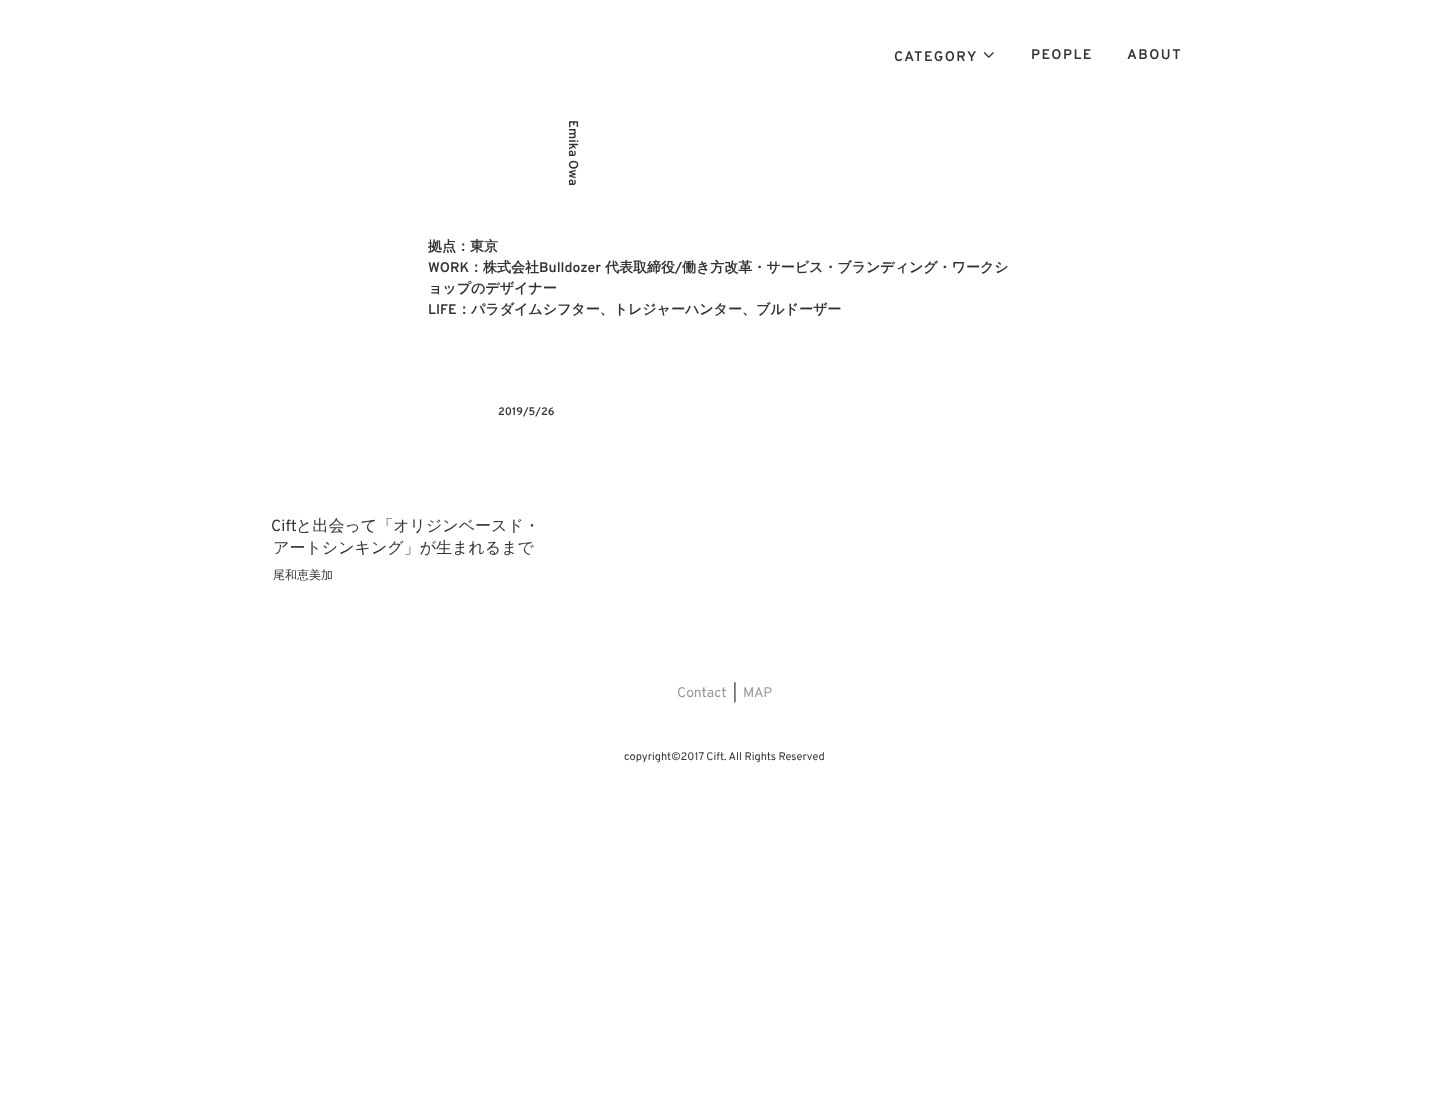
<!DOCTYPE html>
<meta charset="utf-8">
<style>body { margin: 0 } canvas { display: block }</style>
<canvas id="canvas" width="1449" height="1118"></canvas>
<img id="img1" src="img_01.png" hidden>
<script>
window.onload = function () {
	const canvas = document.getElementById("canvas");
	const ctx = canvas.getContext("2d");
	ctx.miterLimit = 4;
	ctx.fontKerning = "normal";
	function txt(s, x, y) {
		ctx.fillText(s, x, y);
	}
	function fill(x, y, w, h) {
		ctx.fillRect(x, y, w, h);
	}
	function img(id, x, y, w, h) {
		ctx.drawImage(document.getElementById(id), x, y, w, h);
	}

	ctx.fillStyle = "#FFFFFF";
	fill(0, 0, 1449, 1118);
	img("img1", 983, 52, 11, 6);
	ctx.letterSpacing = "1.5px";
	ctx.font = "600 14px Overpass";
	ctx.fillStyle = "#333333";
	txt("CATEGORY", 894, 61);
	txt("PEOPLE", 1031, 59);
	txt("ABOUT", 1127, 59);
	ctx.letterSpacing = "0px";
	ctx.font = "600 13px Overpass";
	ctx.save();
	ctx.translate(569, 120);
	ctx.rotate(90 * Math.PI / 180);
	ctx.fillText("Emika Owa", 0, 0);
	ctx.restore();
	ctx.font = "bold 14px WenQuanYi Zen Hei";
	txt("拠点：東京", 428, 251);
	ctx.font = "600 14px Overpass";
	txt("WORK", 428, 272);
	ctx.font = "bold 14px WenQuanYi Zen Hei";
	txt("：株式会社", 469, 272);
	ctx.font = "600 14px Overpass";
	txt("Bulldozer", 539, 272);
	ctx.font = "bold 14px WenQuanYi Zen Hei";
	txt("代表取締役", 605, 272);
	ctx.font = "600 14px Overpass";
	txt("/", 675, 272);
	ctx.font = "bold 14px WenQuanYi Zen Hei";
	txt("働き方改革・サービス・ブランディング・ワークシ", 682, 272);
	txt("ョップのデザイナー", 428, 293);
	ctx.font = "600 14px Overpass";
	txt("LIFE", 428, 314);
	ctx.font = "bold 14px WenQuanYi Zen Hei";
	txt("：パラダイムシフター、トレジャーハンター、ブルドーザー", 457, 314);
	ctx.font = "600 11px Overpass";
	txt("2019/5/26", 498, 415);
	ctx.font = "16px Overpass";
	txt("Cift", 271, 531);
	ctx.font = "500 16px WenQuanYi Zen Hei";
	txt("と出会って「オリジンベースド・", 296, 531);
	txt("アートシンキング」が生まれるまで", 273, 553);
	ctx.font = "500 12px WenQuanYi Zen Hei";
	txt("尾和恵美加", 273, 579);
	ctx.font = "14px Overpass";
	ctx.fillStyle = "#999999";
	txt("Contact", 677, 697);
	ctx.fillStyle = "#333333";
	txt("|", 733, 697);
	ctx.fillStyle = "#999999";
	txt("MAP", 743, 697);
	ctx.font = "11px Overpass";
	ctx.fillStyle = "#333333";
	txt("copyright©2017 Cift. All Rights Reserved", 624, 760);
};
</script>
